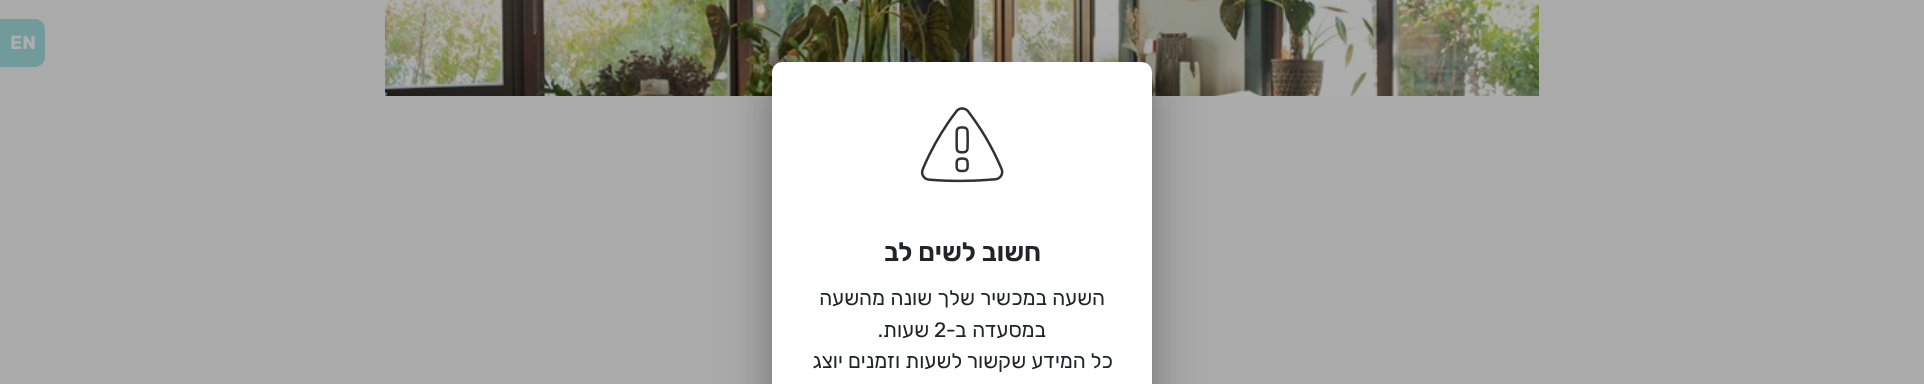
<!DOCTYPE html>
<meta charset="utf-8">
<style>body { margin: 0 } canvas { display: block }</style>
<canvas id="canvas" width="1924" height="384"></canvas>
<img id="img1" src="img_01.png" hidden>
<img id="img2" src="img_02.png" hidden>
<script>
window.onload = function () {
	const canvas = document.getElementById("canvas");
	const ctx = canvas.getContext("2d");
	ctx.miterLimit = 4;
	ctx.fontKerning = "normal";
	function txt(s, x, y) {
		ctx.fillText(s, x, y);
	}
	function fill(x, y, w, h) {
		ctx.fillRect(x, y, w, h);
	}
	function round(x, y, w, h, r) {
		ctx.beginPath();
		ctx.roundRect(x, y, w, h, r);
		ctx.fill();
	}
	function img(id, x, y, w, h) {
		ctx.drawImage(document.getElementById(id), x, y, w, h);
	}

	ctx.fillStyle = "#AAAAAA";
	fill(0, 0, 1924, 384);
	img("img1", 385, 0, 1154, 96);
	ctx.fillStyle = "#719A9B";
	ctx.beginPath();
	ctx.roundRect(0, 19, 45, 48, [0, 10, 10, 0]);
	ctx.fill();
	ctx.fillStyle = "rgba(0, 0, 0, 0.12)";
	ctx.filter = "blur(23px)";
	ctx.beginPath();
	ctx.roundRect(764, 63, 396, 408, 18);
	ctx.fill();
	ctx.filter = "none";
	ctx.fillStyle = "rgba(0, 0, 0, 0.14)";
	ctx.filter = "blur(19px)";
	ctx.beginPath();
	ctx.roundRect(769, 83, 386, 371, 13);
	ctx.fill();
	ctx.filter = "none";
	ctx.fillStyle = "rgba(0, 0, 0, 0.2)";
	ctx.filter = "blur(7.5px)";
	ctx.beginPath();
	ctx.roundRect(779, 80, 366, 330, 3);
	ctx.fill();
	ctx.filter = "none";
	ctx.fillStyle = "#FFFFFF";
	round(772, 62, 380, 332, 10);
	img("img2", 920, 107, 84, 76);
	ctx.font = "bold 19px Rubik";
	ctx.fillStyle = "#ADADAD";
	txt("EN", 10, 49);
	ctx.direction = "rtl";
	ctx.font = "600 26.5px Rubik";
	ctx.fillStyle = "#212529";
	txt("חשוב לשים לב", 1041, 261);
	ctx.wordSpacing = "0.5px";
	ctx.font = "20.9px Rubik";
	txt("השעה במכשיר שלך שונה מהשעה", 1105, 305);
	ctx.wordSpacing = "1px";
	txt("במסעדה ב-", 1046, 337);
	ctx.wordSpacing = "0px";
	ctx.direction = "ltr";
	txt("2", 934, 337);
	ctx.direction = "rtl";
	txt("שעות.", 929, 337);
	txt("כל המידע שקשור לשעות וזמנים יוצג", 1113, 368);
};
</script>
